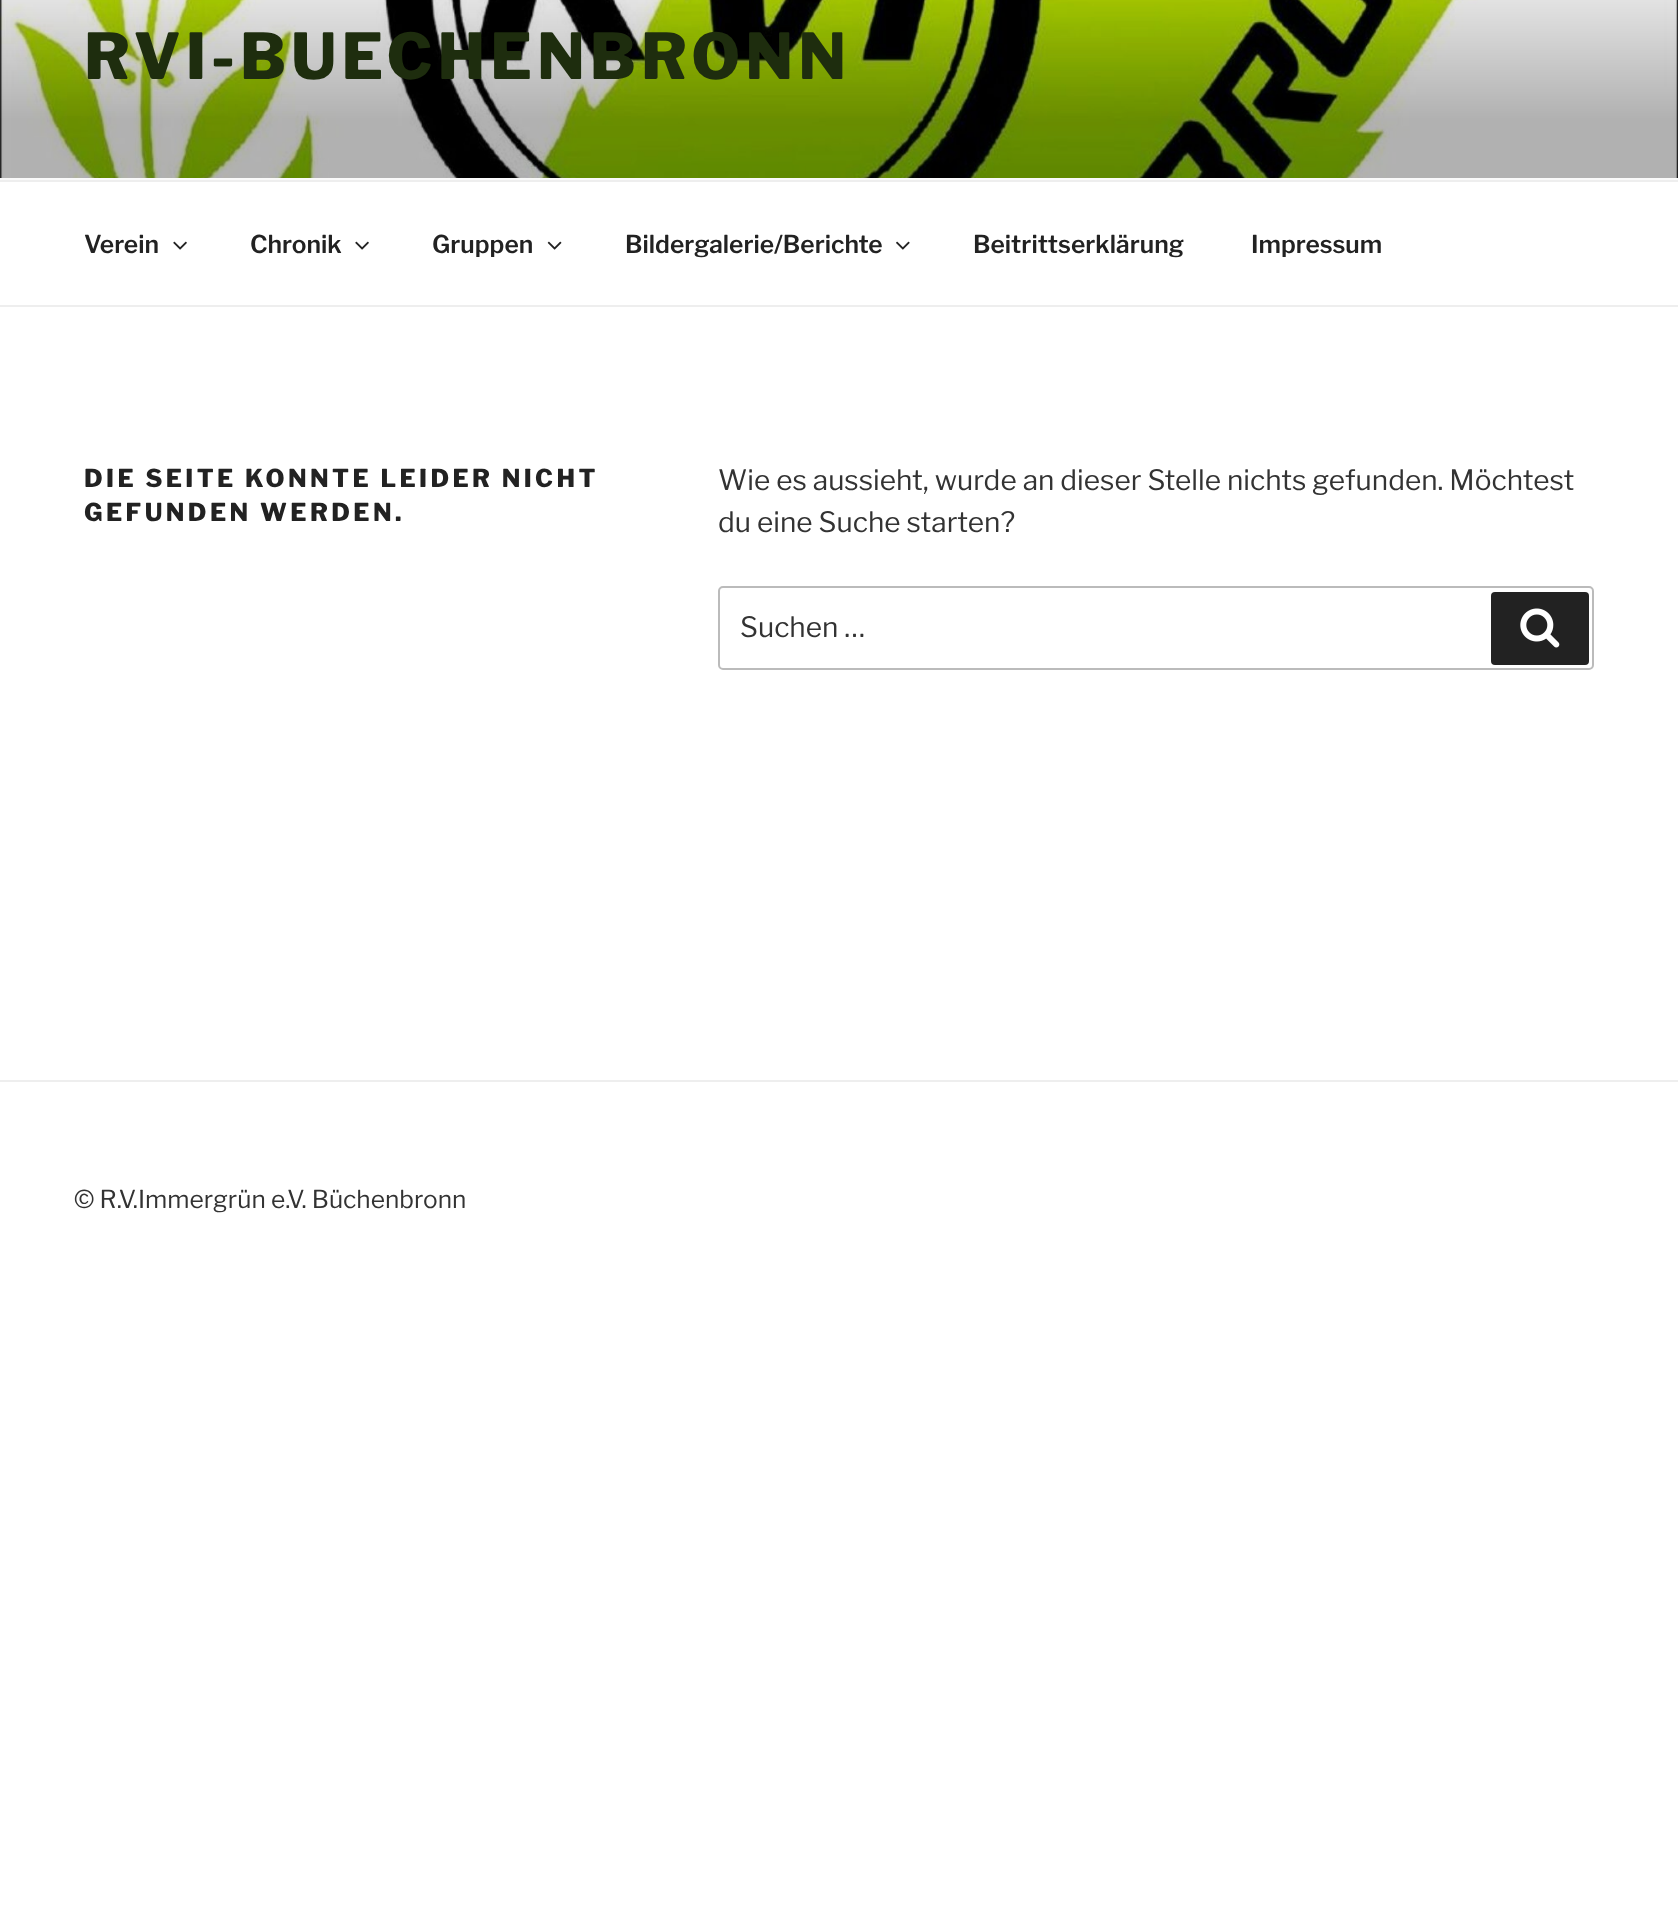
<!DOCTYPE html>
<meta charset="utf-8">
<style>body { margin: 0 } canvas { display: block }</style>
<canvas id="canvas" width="1678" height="1916"></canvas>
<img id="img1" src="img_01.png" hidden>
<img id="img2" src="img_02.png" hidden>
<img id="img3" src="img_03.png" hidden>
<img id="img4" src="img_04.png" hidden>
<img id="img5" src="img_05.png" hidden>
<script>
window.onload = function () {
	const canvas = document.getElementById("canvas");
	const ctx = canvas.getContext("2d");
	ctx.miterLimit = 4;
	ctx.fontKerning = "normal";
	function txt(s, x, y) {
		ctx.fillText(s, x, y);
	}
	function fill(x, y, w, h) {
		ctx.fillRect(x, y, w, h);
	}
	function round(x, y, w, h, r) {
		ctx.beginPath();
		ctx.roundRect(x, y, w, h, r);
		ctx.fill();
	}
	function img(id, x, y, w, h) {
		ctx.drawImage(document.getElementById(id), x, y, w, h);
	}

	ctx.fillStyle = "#FFFFFF";
	fill(0, 0, 1678, 1916);
	ctx.fillStyle = "#FAFAFA";
	fill(0, 178, 1678, 2);
	img("img1", 0, 0, 1678, 178);
	ctx.fillStyle = "#EEEEEE";
	fill(0, 180, 1678, 2);
	fill(0, 305, 1678, 2);
	img("img2", 173, 241, 14, 9);
	img("img2", 355, 241, 14, 9);
	img("img3", 547, 241, 15, 9);
	img("img4", 896, 241, 14, 9);
	ctx.beginPath();
	ctx.roundRect(719, 587, 874, 82, 4);
	ctx.strokeStyle = "#BBBBBB";
	ctx.lineWidth = 2;
	ctx.stroke();
	ctx.fillStyle = "#222222";
	round(1491, 592, 98, 73, 4);
	img("img5", 1520, 608, 40, 40);
	ctx.fillStyle = "#EEEEEE";
	fill(0, 1080, 1678, 2);
	ctx.letterSpacing = "5px";
	ctx.font = "800 63px Libre Franklin";
	ctx.fillStyle = "#1E2D0E";
	txt("RVI-BUECHENBRONN", 84, 79);
	ctx.letterSpacing = "0px";
	ctx.font = "600 24.5px Libre Franklin";
	ctx.fillStyle = "#222222";
	txt("Verein", 84, 253);
	txt("Chronik", 250, 253);
	txt("Gruppen", 432, 253);
	txt("Bildergalerie/Berichte", 625, 253);
	txt("Beitrittserklärung", 973, 253);
	txt("Impressum", 1251, 253);
	ctx.letterSpacing = "3.4px";
	ctx.font = "800 24.5px Libre Franklin";
	txt("DIE SEITE KONNTE LEIDER NICHT", 84, 487);
	txt("GEFUNDEN WERDEN.", 84, 521);
	ctx.letterSpacing = "0px";
	ctx.font = "28px Libre Franklin";
	ctx.fillStyle = "#333333";
	txt("Wie es aussieht, wurde an dieser Stelle nichts gefunden. Möchtest", 718, 490);
	txt("du eine Suche starten?", 718, 532);
	txt("Suchen …", 740, 637);
	ctx.font = "24.5px Libre Franklin";
	txt("© R.V.Immergrün e.V. Büchenbronn", 74, 1208);
};
</script>
